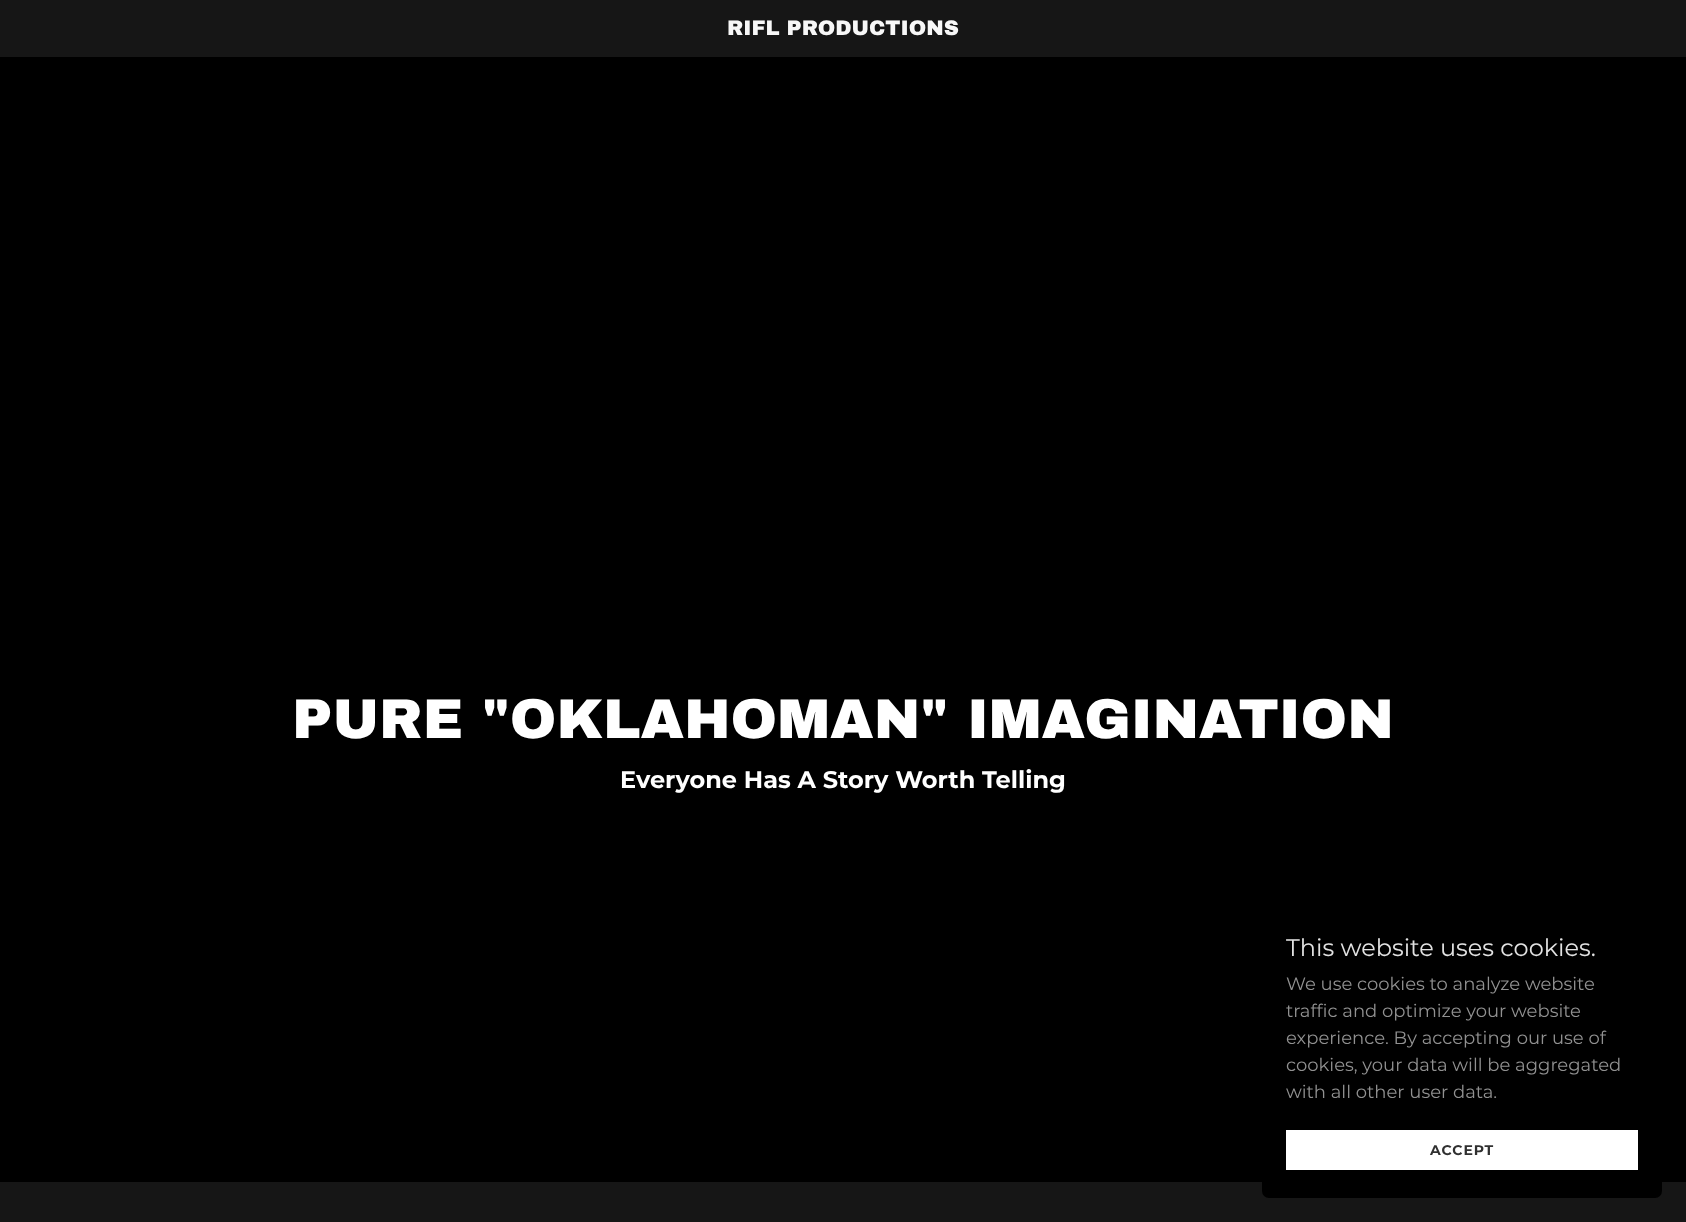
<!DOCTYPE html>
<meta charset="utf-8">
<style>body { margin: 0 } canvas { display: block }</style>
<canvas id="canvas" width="1686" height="1222"></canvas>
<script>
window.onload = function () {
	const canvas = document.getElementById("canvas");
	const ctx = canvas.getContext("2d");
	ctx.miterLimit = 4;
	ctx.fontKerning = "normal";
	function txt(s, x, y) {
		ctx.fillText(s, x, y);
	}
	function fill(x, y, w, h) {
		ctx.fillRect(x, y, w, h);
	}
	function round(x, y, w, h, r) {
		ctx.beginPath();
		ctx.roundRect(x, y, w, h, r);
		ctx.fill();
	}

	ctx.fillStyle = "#161616";
	fill(0, 0, 1686, 1222);
	ctx.fillStyle = "#000000";
	fill(0, 57, 1686, 1125);
	round(1262, 909, 400, 289, 7);
	ctx.fillStyle = "#FFFFFF";
	fill(1286, 1130, 352, 40);
	ctx.font = "900 21px Archivo Black";
	ctx.fillStyle = "#F7F7F7";
	txt("RIFL PRODUCTIONS", 727, 35);
	ctx.font = "900 56px Archivo Black";
	ctx.fillStyle = "#FFFFFF";
	txt("PURE \"OKLAHOMAN\" IMAGINATION", 292, 738);
	ctx.font = "bold 24px Montserrat";
	txt("Everyone Has A Story Worth Telling", 620, 788);
	ctx.font = "24px Montserrat";
	ctx.fillStyle = "#E2E2E2";
	txt("This website uses cookies.", 1286, 956);
	ctx.font = "18px Montserrat";
	ctx.fillStyle = "#919191";
	txt("We use cookies to analyze website", 1286, 990);
	txt("traffic and optimize your website", 1286, 1017);
	txt("experience. By accepting our use of", 1286, 1044);
	txt("cookies, your data will be aggregated", 1286, 1071);
	txt("with all other user data.", 1286, 1098);
	ctx.letterSpacing = "1px";
	ctx.font = "bold 14px Montserrat";
	ctx.fillStyle = "#303030";
	txt("ACCEPT", 1430, 1155);
};
</script>
